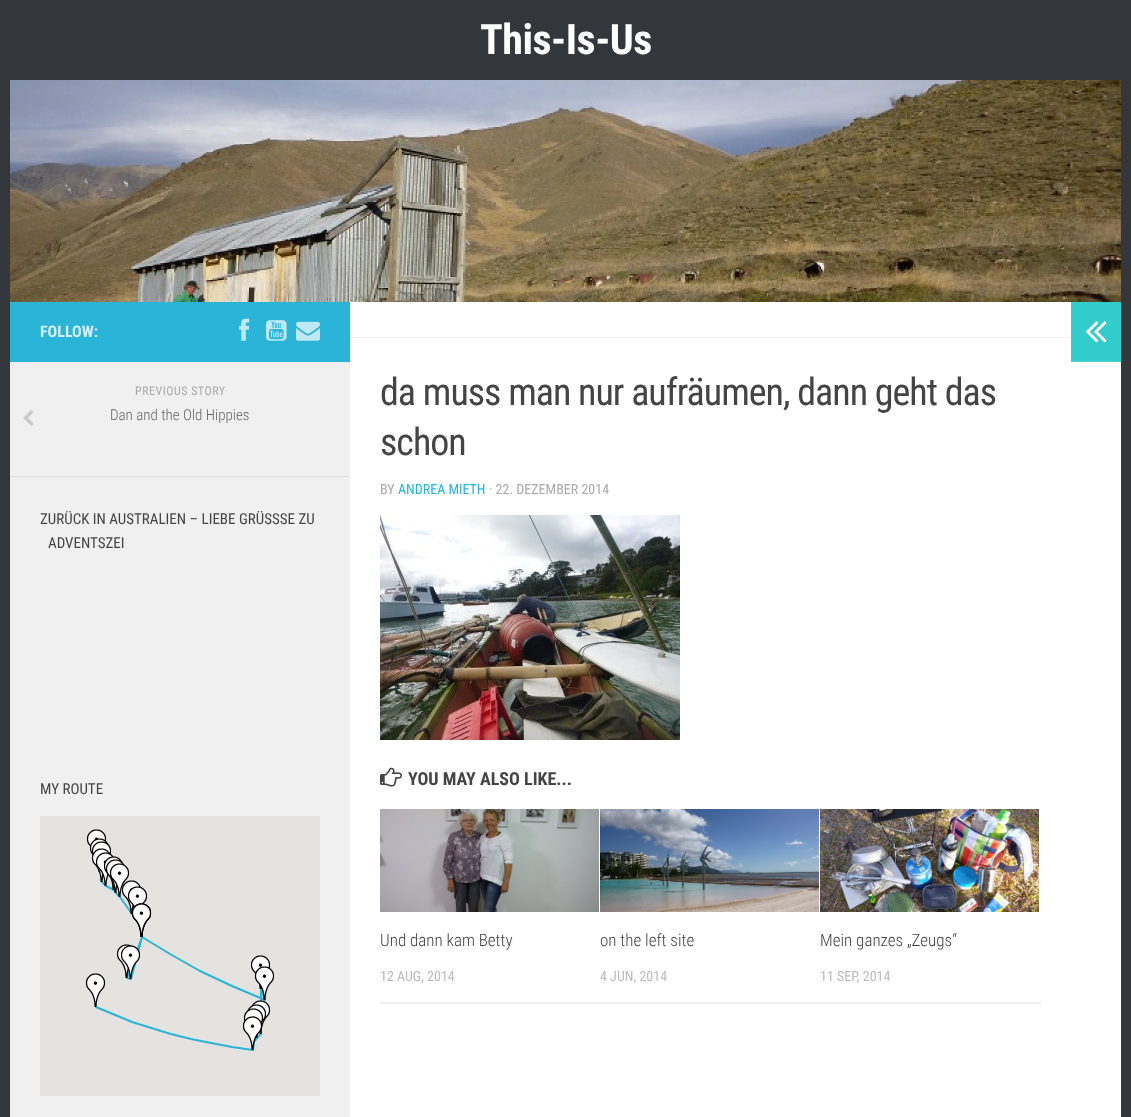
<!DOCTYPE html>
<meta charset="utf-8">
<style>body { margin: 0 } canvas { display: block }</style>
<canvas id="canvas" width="1131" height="1117"></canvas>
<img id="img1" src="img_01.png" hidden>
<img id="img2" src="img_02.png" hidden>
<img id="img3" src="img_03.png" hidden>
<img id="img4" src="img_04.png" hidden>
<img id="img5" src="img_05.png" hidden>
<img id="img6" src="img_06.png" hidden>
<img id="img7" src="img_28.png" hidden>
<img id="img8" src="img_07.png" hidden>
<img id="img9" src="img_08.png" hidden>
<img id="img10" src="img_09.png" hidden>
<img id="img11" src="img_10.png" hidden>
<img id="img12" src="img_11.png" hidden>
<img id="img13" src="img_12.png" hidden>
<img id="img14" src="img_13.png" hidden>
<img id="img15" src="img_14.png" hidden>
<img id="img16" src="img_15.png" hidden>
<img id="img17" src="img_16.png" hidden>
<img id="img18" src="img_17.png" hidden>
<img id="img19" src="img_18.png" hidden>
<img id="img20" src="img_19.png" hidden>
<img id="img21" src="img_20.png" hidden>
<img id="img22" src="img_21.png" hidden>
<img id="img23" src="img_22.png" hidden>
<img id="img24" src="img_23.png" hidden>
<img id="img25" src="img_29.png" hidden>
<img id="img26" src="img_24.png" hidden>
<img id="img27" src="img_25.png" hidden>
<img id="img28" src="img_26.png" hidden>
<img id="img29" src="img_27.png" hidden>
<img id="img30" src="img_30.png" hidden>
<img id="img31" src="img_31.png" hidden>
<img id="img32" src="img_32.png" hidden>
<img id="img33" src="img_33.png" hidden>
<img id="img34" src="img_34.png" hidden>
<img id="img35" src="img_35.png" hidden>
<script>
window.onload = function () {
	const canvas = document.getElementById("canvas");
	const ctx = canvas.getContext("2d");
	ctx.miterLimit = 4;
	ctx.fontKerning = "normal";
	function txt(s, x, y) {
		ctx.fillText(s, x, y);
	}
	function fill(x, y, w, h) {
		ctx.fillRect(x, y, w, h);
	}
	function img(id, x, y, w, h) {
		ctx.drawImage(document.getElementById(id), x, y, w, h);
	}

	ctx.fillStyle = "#33363B";
	fill(0, 0, 1131, 1117);
	img("img1", 10, 80, 1111, 222);
	ctx.fillStyle = "#FFFFFF";
	fill(350, 302, 771, 815);
	ctx.fillStyle = "#F0F0F0";
	fill(10, 363, 340, 754);
	ctx.fillStyle = "#2AB4D7";
	fill(10, 302, 340, 60);
	img("img2", 239, 318, 11, 23);
	img("img3", 266, 320, 21, 21);
	img("img4", 296, 321, 24, 20);
	ctx.fillStyle = "#EEEEEE";
	fill(10, 362, 340, 1);
	ctx.fillStyle = "#DDDDDD";
	fill(10, 476, 340, 1);
	img("img5", 23, 410, 11, 16);
	ctx.fillStyle = "#E5E3DF";
	fill(40, 816, 280, 280);
	img("img6", 86, 829, 21, 18);
	img("img7", 95, 867, 171, 163);
	img("img8", 89, 838, 20, 34);
	img("img9", 92, 841, 20, 15);
	img("img10", 91, 848, 20, 34);
	img("img11", 95, 852, 19, 34);
	img("img12", 103, 856, 20, 34);
	img("img13", 106, 859, 19, 34);
	img("img14", 109, 863, 21, 34);
	img("img15", 121, 880, 20, 34);
	img("img16", 127, 886, 21, 22);
	img("img17", 132, 903, 20, 34);
	img("img18", 132, 903, 20, 34);
	img("img19", 132, 903, 20, 34);
	img("img20", 116, 944, 16, 34);
	img("img21", 120, 945, 21, 34);
	img("img22", 250, 955, 21, 34);
	img("img23", 85, 973, 21, 34);
	img("img24", 254, 966, 21, 34);
	img("img25", 154, 1030, 108, 21);
	img("img26", 251, 1000, 20, 34);
	img("img27", 247, 1004, 20, 34);
	img("img28", 243, 1008, 21, 34);
	img("img29", 242, 1016, 21, 34);
	ctx.fillStyle = "#EEEEEE";
	fill(350, 337, 721, 1);
	img("img30", 380, 515, 300, 225);
	img("img31", 380, 767, 22, 20);
	fill(380, 1002, 661, 2);
	img("img32", 380, 809, 219, 103);
	img("img33", 600, 809, 219, 103);
	img("img34", 820, 809, 219, 103);
	ctx.fillStyle = "#33CCCC";
	fill(1071, 302, 50, 59);
	ctx.fillStyle = "#47D1D1";
	fill(1071, 361, 50, 1);
	img("img35", 1086, 321, 21, 22);
	ctx.letterSpacing = "-0.5px";
	ctx.font = "bold 42px Roboto Condensed";
	ctx.fillStyle = "#FFFFFF";
	txt("This-Is-Us", 480, 54);
	ctx.letterSpacing = "0px";
	ctx.font = "bold 16px Roboto Condensed";
	ctx.fillStyle = "#D4F0F7";
	txt("FOLLOW:", 40, 337);
	ctx.letterSpacing = "0.5px";
	ctx.font = "12px Roboto Condensed";
	ctx.fillStyle = "#AAAAAA";
	txt("PREVIOUS STORY", 135, 395);
	ctx.letterSpacing = "0px";
	ctx.font = "300 15px Roboto Condensed";
	ctx.fillStyle = "#666666";
	txt("Dan and the Old Hippies", 110, 420);
	ctx.font = "15px Roboto Condensed";
	ctx.fillStyle = "#444444";
	txt("ZURÜCK IN AUSTRALIEN – LIEBE GRÜSSSE ZU", 40, 524);
	txt("ADVENTSZEI", 48, 548);
	txt("MY ROUTE", 40, 794);
	ctx.letterSpacing = "-1px";
	ctx.font = "38px Roboto Condensed";
	txt("da muss man nur aufräumen, dann geht das", 380, 405);
	txt("schon", 380, 455);
	ctx.letterSpacing = "0px";
	ctx.font = "14px Roboto Condensed";
	ctx.fillStyle = "#AAAAAA";
	txt("BY", 380, 494);
	ctx.fillStyle = "#2AB4D7";
	txt("ANDREA MIETH", 398, 494);
	ctx.fillStyle = "#AAAAAA";
	txt("· 22. DEZEMBER 2014", 489, 494);
	ctx.font = "bold 18px Roboto Condensed";
	ctx.fillStyle = "#444444";
	txt("YOU MAY ALSO LIKE...", 408, 785);
	ctx.font = "300 17px Roboto Condensed";
	txt("Und dann kam Betty", 380, 946);
	ctx.font = "14px Roboto Condensed";
	ctx.fillStyle = "#BBBBBB";
	txt("12 AUG, 2014", 380, 981);
	ctx.font = "300 17px Roboto Condensed";
	ctx.fillStyle = "#444444";
	txt("on the left site", 600, 946);
	ctx.font = "14px Roboto Condensed";
	ctx.fillStyle = "#BBBBBB";
	txt("4 JUN, 2014", 600, 981);
	ctx.font = "300 17px Roboto Condensed";
	ctx.fillStyle = "#444444";
	txt("Mein ganzes „Zeugs“", 820, 946);
	ctx.font = "14px Roboto Condensed";
	ctx.fillStyle = "#BBBBBB";
	txt("11 SEP, 2014", 820, 981);
};
</script>
